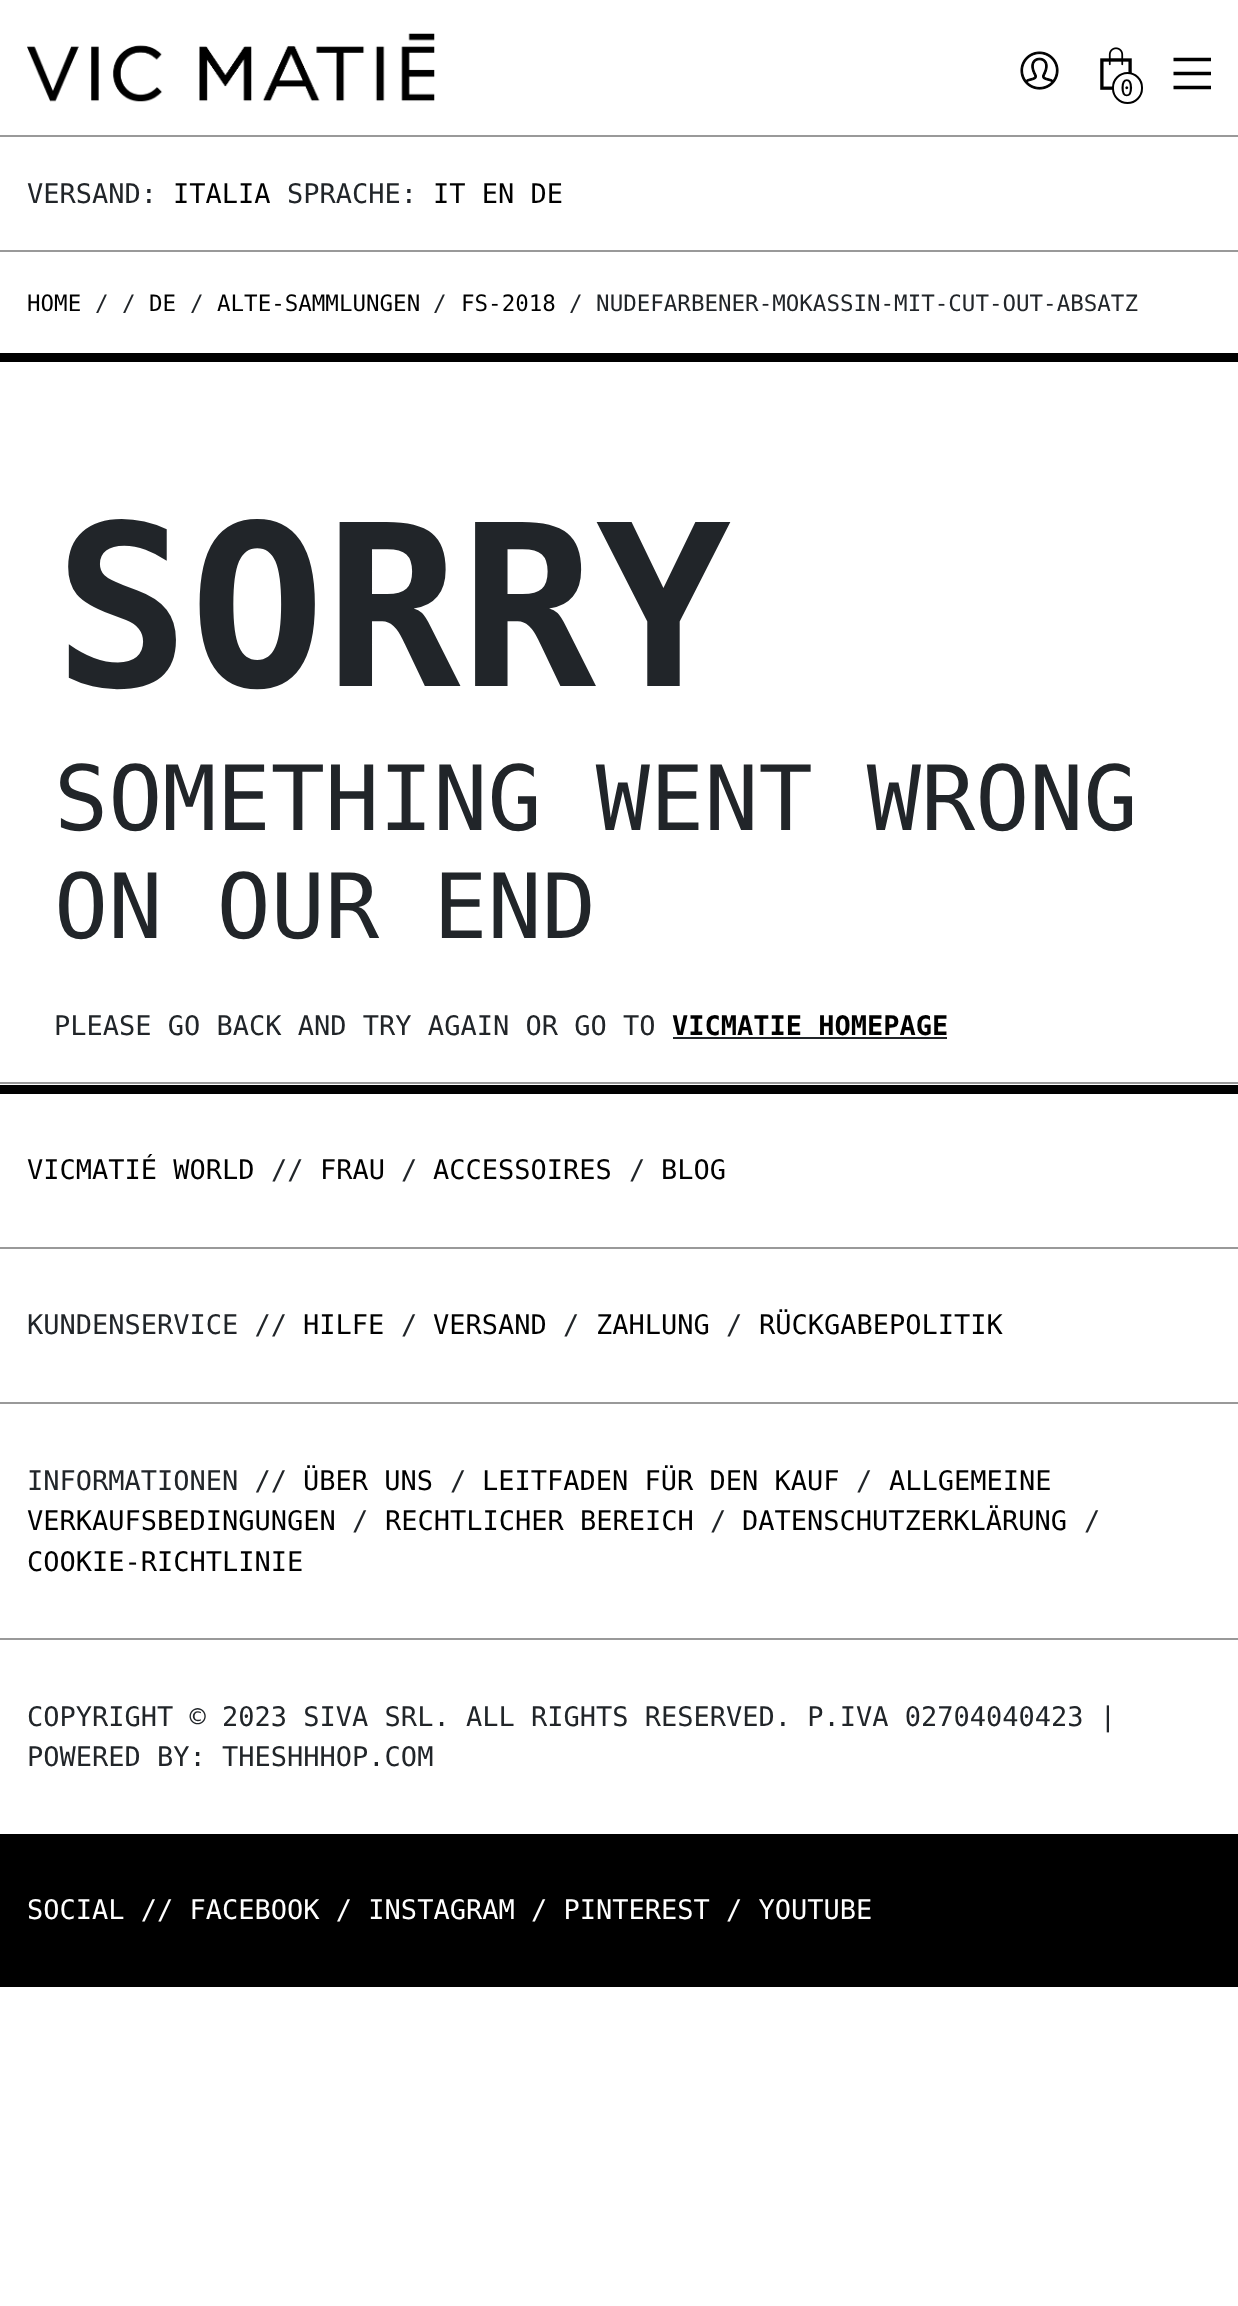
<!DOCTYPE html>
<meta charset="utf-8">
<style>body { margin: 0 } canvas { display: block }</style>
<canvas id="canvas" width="1238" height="2306"></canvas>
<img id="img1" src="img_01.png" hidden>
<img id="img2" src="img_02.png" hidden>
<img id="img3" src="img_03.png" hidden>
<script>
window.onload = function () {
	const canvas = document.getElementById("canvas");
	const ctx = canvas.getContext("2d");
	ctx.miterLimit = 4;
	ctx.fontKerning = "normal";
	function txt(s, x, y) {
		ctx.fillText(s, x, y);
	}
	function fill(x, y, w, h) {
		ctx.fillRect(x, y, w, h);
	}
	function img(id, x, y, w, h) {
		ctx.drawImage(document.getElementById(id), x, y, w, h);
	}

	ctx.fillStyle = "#FFFFFF";
	fill(0, 0, 1238, 2306);
	ctx.fillStyle = "#999999";
	fill(0, 135, 1238, 2);
	img("img1", 27, 33, 408, 69);
	img("img2", 1020, 51, 39, 39);
	img("img3", 1100, 47, 32, 43);
	ctx.fillStyle = "#FFFFFF";
	ctx.beginPath();
	ctx.roundRect(1113, 73, 29, 30, 14.5);
	ctx.fill();
	ctx.strokeStyle = "#000000";
	ctx.lineWidth = 2;
	ctx.stroke();
	ctx.beginPath();
	ctx.moveTo(1173.5, 59.5);
	ctx.lineTo(1211, 59.5);
	ctx.moveTo(1173.5, 73.5);
	ctx.lineTo(1211, 73.5);
	ctx.moveTo(1173.5, 87.5);
	ctx.lineTo(1211, 87.5);
	ctx.lineWidth = 3.6;
	ctx.stroke();
	ctx.fillStyle = "#999999";
	fill(0, 250, 1238, 2);
	ctx.fillStyle = "#000000";
	fill(0, 353, 1238, 9);
	ctx.fillStyle = "#212529";
	fill(673, 1037, 274, 2);
	ctx.fillStyle = "#999999";
	fill(0, 1082, 1238, 2);
	ctx.fillStyle = "#000000";
	fill(0, 1085, 1238, 9);
	ctx.fillStyle = "#999999";
	fill(0, 1247, 1238, 2);
	fill(0, 1402, 1238, 2);
	fill(0, 1638, 1238, 2);
	ctx.fillStyle = "#000000";
	fill(0, 1834, 1238, 153);
	ctx.font = "22.5px DejaVu Sans Mono";
	txt("0", 1120, 96);
	ctx.font = "27px DejaVu Sans Mono";
	ctx.fillStyle = "#212529";
	txt("VERSAND:", 27, 203);
	ctx.fillStyle = "#000000";
	txt("ITALIA", 173, 203);
	ctx.fillStyle = "#212529";
	txt("SPRACHE:", 287, 203);
	ctx.fillStyle = "#000000";
	txt("IT EN DE", 433, 203);
	ctx.font = "22.5px DejaVu Sans Mono";
	txt("HOME", 27, 311);
	ctx.fillStyle = "#212529";
	txt("/ /", 95, 311);
	ctx.fillStyle = "#000000";
	txt("DE", 149, 311);
	ctx.fillStyle = "#212529";
	txt("/", 190, 311);
	ctx.fillStyle = "#000000";
	txt("ALTE-SAMMLUNGEN", 217, 311);
	ctx.fillStyle = "#212529";
	txt("/", 433, 311);
	ctx.fillStyle = "#000000";
	txt("FS-2018", 461, 311);
	ctx.fillStyle = "#212529";
	txt("/ NUDEFARBENER-MOKASSIN-MIT-CUT-OUT-ABSATZ", 569, 311);
	ctx.font = "bold 225px DejaVu Sans Mono";
	txt("SORRY", 54, 686);
	ctx.font = "90px DejaVu Sans Mono";
	txt("SOMETHING WENT WRONG", 54, 830);
	txt("ON OUR END", 54, 938);
	ctx.font = "27px DejaVu Sans Mono";
	txt("PLEASE GO BACK AND TRY AGAIN OR GO TO", 54, 1035);
	ctx.font = "bold 27px DejaVu Sans Mono";
	ctx.fillStyle = "#000000";
	txt("VICMATIE HOMEPAGE", 672, 1035);
	ctx.font = "27px DejaVu Sans Mono";
	txt("VICMATIÉ WORLD", 27, 1179);
	ctx.fillStyle = "#212529";
	txt("//", 271, 1179);
	ctx.fillStyle = "#000000";
	txt("FRAU", 320, 1179);
	ctx.fillStyle = "#212529";
	txt("/", 401, 1179);
	ctx.fillStyle = "#000000";
	txt("ACCESSOIRES", 433, 1179);
	ctx.fillStyle = "#212529";
	txt("/", 629, 1179);
	ctx.fillStyle = "#000000";
	txt("BLOG", 661, 1179);
	ctx.fillStyle = "#212529";
	txt("KUNDENSERVICE //", 27, 1334);
	ctx.fillStyle = "#000000";
	txt("HILFE", 303, 1334);
	ctx.fillStyle = "#212529";
	txt("/", 401, 1334);
	ctx.fillStyle = "#000000";
	txt("VERSAND", 433, 1334);
	ctx.fillStyle = "#212529";
	txt("/", 563, 1334);
	ctx.fillStyle = "#000000";
	txt("ZAHLUNG", 596, 1334);
	ctx.fillStyle = "#212529";
	txt("/", 726, 1334);
	ctx.fillStyle = "#000000";
	txt("RÜCKGABEPOLITIK", 759, 1334);
	ctx.fillStyle = "#212529";
	txt("INFORMATIONEN //", 27, 1490);
	ctx.fillStyle = "#000000";
	txt("ÜBER UNS", 303, 1490);
	ctx.fillStyle = "#212529";
	txt("/", 450, 1490);
	ctx.fillStyle = "#000000";
	txt("LEITFADEN FÜR DEN KAUF", 482, 1490);
	ctx.fillStyle = "#212529";
	txt("/", 856, 1490);
	ctx.fillStyle = "#000000";
	txt("ALLGEMEINE", 889, 1490);
	txt("VERKAUFSBEDINGUNGEN", 27, 1530);
	ctx.fillStyle = "#212529";
	txt("/", 352, 1530);
	ctx.fillStyle = "#000000";
	txt("RECHTLICHER BEREICH", 385, 1530);
	ctx.fillStyle = "#212529";
	txt("/", 710, 1530);
	ctx.fillStyle = "#000000";
	txt("DATENSCHUTZERKLÄRUNG", 742, 1530);
	ctx.fillStyle = "#212529";
	txt("/", 1084, 1530);
	ctx.fillStyle = "#000000";
	txt("COOKIE-RICHTLINIE", 27, 1571);
	ctx.fillStyle = "#212529";
	txt("COPYRIGHT © 2023 SIVA SRL. ALL RIGHTS RESERVED. P.IVA 02704040423 |", 27, 1726);
	txt("POWERED BY: THESHHHOP.COM", 27, 1766);
	ctx.fillStyle = "#FFFFFF";
	txt("SOCIAL // FACEBOOK / INSTAGRAM / PINTEREST / YOUTUBE", 27, 1919);
};
</script>
